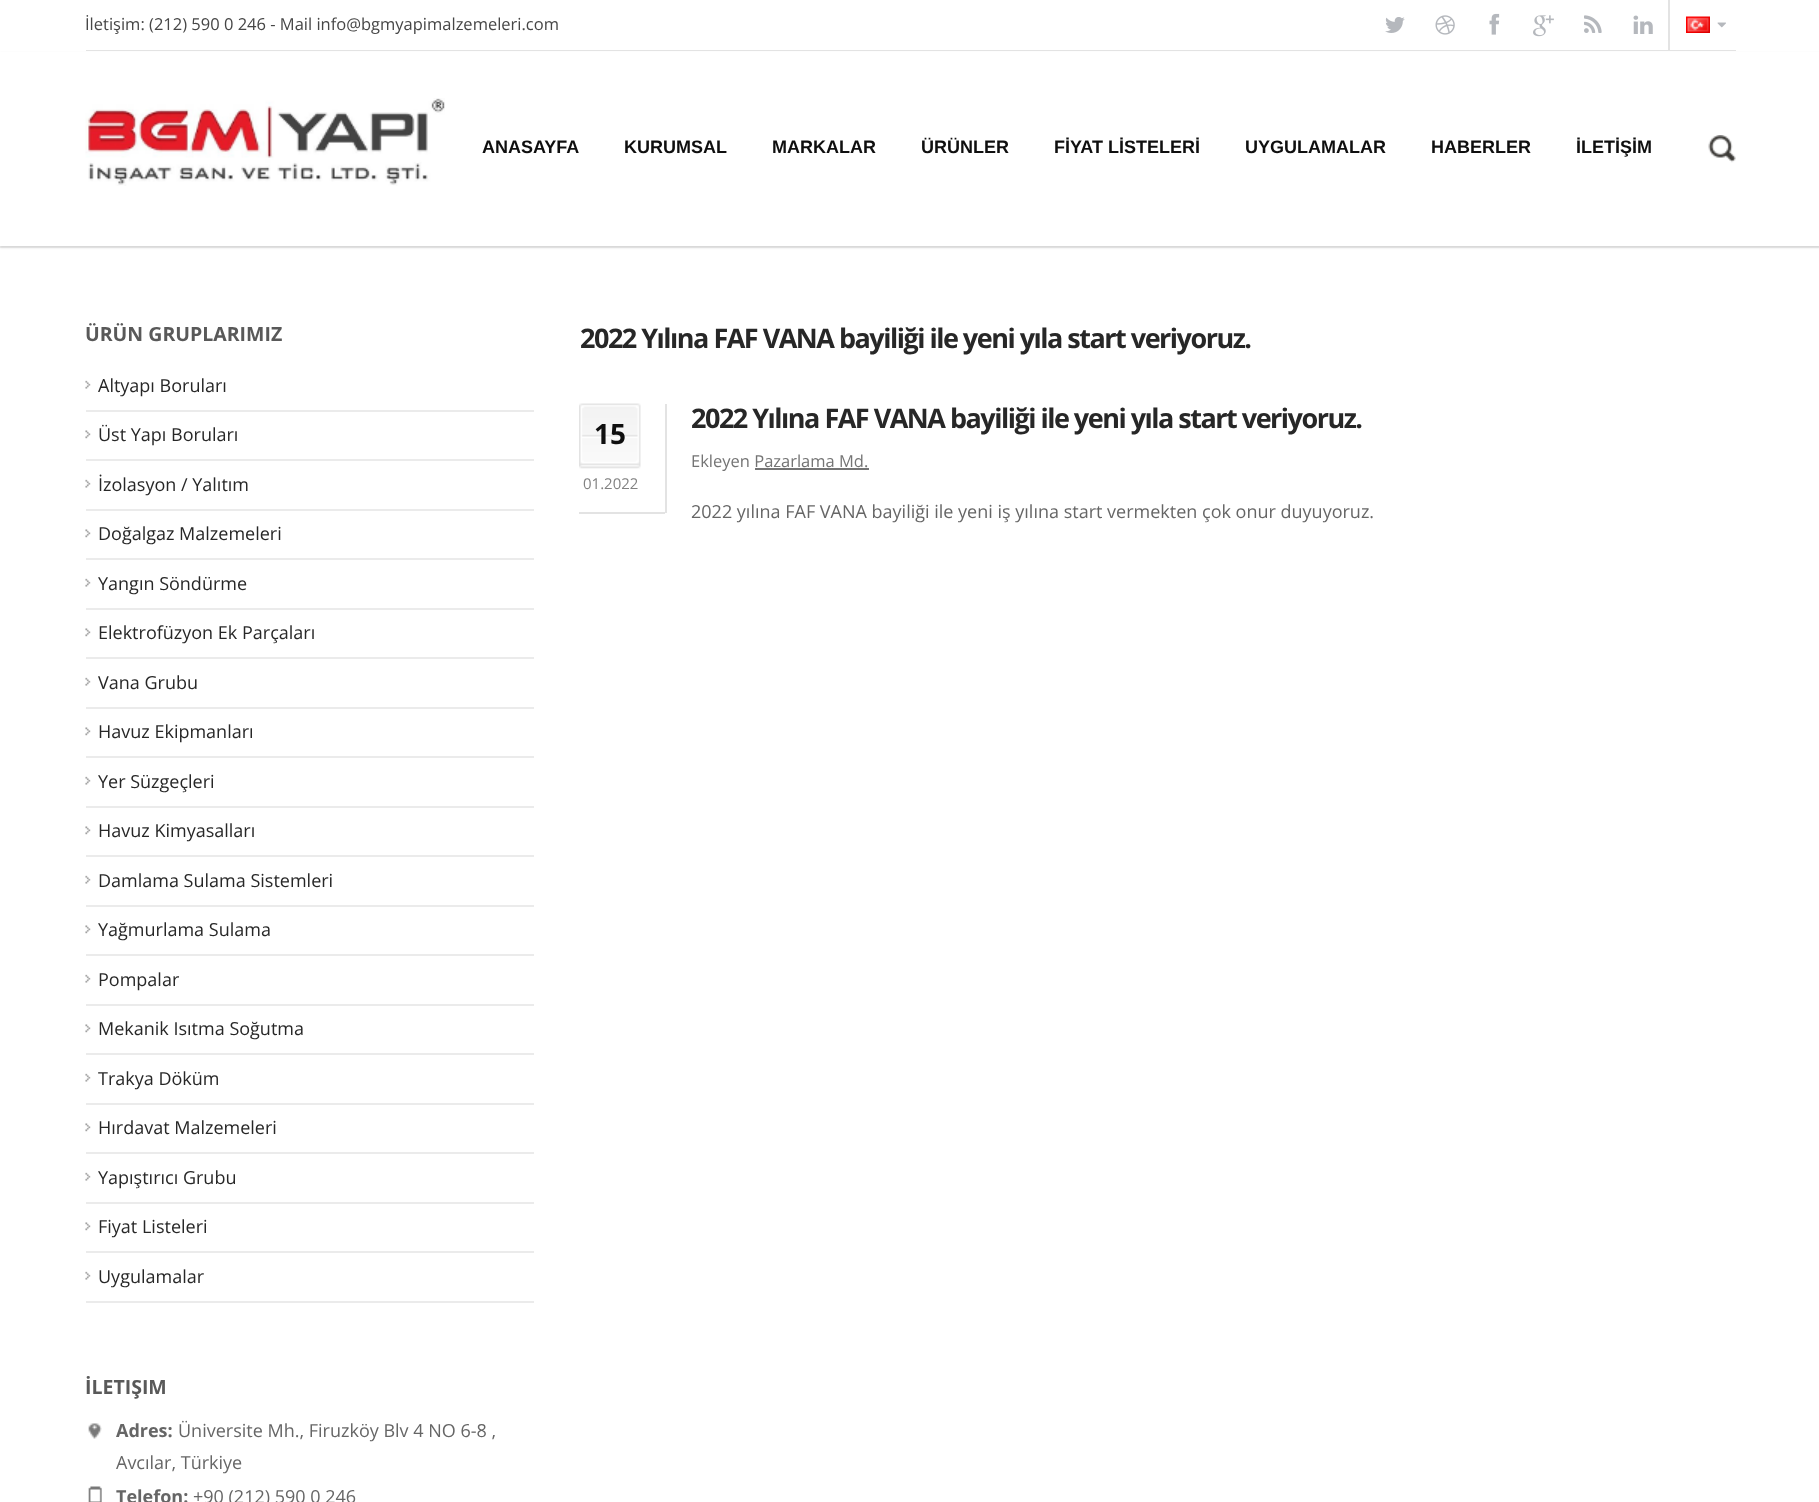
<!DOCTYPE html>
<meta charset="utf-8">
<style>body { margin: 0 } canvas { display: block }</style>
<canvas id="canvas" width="1819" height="1502"></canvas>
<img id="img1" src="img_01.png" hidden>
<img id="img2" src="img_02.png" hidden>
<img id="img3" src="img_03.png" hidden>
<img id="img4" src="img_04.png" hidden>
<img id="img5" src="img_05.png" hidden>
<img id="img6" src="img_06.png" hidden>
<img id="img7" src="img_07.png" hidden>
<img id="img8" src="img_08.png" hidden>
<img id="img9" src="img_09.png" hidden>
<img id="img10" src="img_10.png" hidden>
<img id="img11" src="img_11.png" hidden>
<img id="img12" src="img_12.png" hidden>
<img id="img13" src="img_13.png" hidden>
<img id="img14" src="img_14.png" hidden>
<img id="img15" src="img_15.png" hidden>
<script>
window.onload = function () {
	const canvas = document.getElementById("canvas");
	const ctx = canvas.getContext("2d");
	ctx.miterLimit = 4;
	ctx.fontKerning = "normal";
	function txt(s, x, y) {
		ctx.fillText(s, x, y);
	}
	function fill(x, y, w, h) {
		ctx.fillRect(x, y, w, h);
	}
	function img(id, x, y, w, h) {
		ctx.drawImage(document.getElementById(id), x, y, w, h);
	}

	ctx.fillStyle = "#FFFFFF";
	fill(0, 0, 1819, 1502);
	ctx.fillStyle = "#E3E3E3";
	fill(86, 50, 1650, 1);
	img("img1", 1385, 17, 20, 16);
	img("img2", 1435, 15, 20, 20);
	img("img3", 1489, 13, 11, 22);
	img("img4", 1533, 15, 21, 22);
	img("img5", 1584, 15, 18, 18);
	img("img6", 1633, 15, 20, 19);
	fill(1668, 0, 2, 50);
	img("img7", 1686, 16, 24, 17);
	img("img8", 1717, 22, 9, 6);
	ctx.fillStyle = "#F0F0F0";
	ctx.beginPath();
	ctx.moveTo(0, 246);
	ctx.lineTo(0, 248);
	ctx.lineTo(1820, 248);
	ctx.lineTo(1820, 53);
	ctx.lineTo(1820, 246);
	ctx.closePath();
	ctx.fill();
	ctx.fillStyle = "rgba(0, 0, 0, 0.1)";
	ctx.filter = "blur(1px)";
	ctx.beginPath();
	ctx.rect(0, 53, 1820, 195);
	ctx.fill();
	ctx.filter = "none";
	ctx.fillStyle = "#FFFFFF";
	fill(0, 52, 1819, 194);
	img("img9", 85, 98, 360, 88);
	img("img10", 1708, 135, 28, 28);
	ctx.fillStyle = "#EBEBEB";
	fill(86, 410, 448, 2);
	img("img11", 85, 380, 6, 9);
	fill(86, 459, 448, 2);
	img("img12", 85, 430, 6, 9);
	fill(86, 509, 448, 2);
	img("img11", 85, 479, 6, 9);
	fill(86, 558, 448, 2);
	img("img12", 85, 529, 6, 9);
	fill(86, 608, 448, 2);
	img("img11", 85, 578, 6, 9);
	fill(86, 657, 448, 2);
	img("img12", 85, 628, 6, 9);
	fill(86, 707, 448, 2);
	img("img11", 85, 677, 6, 9);
	fill(86, 756, 448, 2);
	img("img12", 85, 727, 6, 9);
	fill(86, 806, 448, 2);
	img("img11", 85, 776, 6, 9);
	fill(86, 855, 448, 2);
	img("img12", 85, 826, 6, 9);
	fill(86, 905, 448, 2);
	img("img11", 85, 875, 6, 9);
	fill(86, 954, 448, 2);
	img("img12", 85, 925, 6, 9);
	fill(86, 1004, 448, 2);
	img("img11", 85, 974, 6, 9);
	fill(86, 1053, 448, 2);
	img("img12", 85, 1024, 6, 9);
	fill(86, 1103, 448, 2);
	img("img11", 85, 1073, 6, 9);
	fill(86, 1152, 448, 2);
	img("img12", 85, 1123, 6, 9);
	fill(86, 1202, 448, 2);
	img("img11", 85, 1172, 6, 9);
	fill(86, 1251, 448, 2);
	img("img12", 85, 1222, 6, 9);
	fill(86, 1301, 448, 2);
	img("img11", 85, 1271, 6, 9);
	img("img13", 88, 1423, 14, 16);
	img("img14", 88, 1486, 14, 16);
	ctx.fillStyle = "#E3E3E3";
	fill(665, 404, 2, 109);
	fill(579, 512, 86, 2);
	img("img15", 579, 403, 62, 66);
	ctx.fillStyle = "#747474";
	fill(755, 468, 114, 2);
	ctx.font = "16.5px Open Sans";
	ctx.fillStyle = "#464646";
	txt("İletişim: (212) 590 0 246 - Mail info@bgmyapimalzemeleri.com", 85, 30);
	ctx.font = "bold 18px Liberation Sans";
	ctx.fillStyle = "#0F0F0F";
	txt("ANASAYFA", 482, 153);
	txt("KURUMSAL", 624, 153);
	txt("MARKALAR", 772, 153);
	txt("ÜRÜNLER", 921, 153);
	txt("FİYAT LİSTELERİ", 1054, 153);
	txt("UYGULAMALAR", 1245, 153);
	txt("HABERLER", 1431, 153);
	txt("İLETİŞİM", 1576, 153);
	ctx.font = "bold 19.5px Open Sans";
	ctx.fillStyle = "#595959";
	txt("ÜRÜN GRUPLARIMIZ", 85, 341);
	ctx.font = "18px Open Sans";
	ctx.fillStyle = "#272727";
	txt("Altyapı Boruları", 98, 392);
	txt("Üst Yapı Boruları", 98, 441);
	txt("İzolasyon / Yalıtım", 98, 491);
	txt("Doğalgaz Malzemeleri", 98, 540);
	txt("Yangın Söndürme", 98, 590);
	txt("Elektrofüzyon Ek Parçaları", 98, 639);
	txt("Vana Grubu", 98, 689);
	txt("Havuz Ekipmanları", 98, 738);
	txt("Yer Süzgeçleri", 98, 788);
	txt("Havuz Kimyasalları", 98, 837);
	txt("Damlama Sulama Sistemleri", 98, 887);
	txt("Yağmurlama Sulama", 98, 936);
	txt("Pompalar", 98, 986);
	txt("Mekanik Isıtma Soğutma", 98, 1035);
	txt("Trakya Döküm", 98, 1085);
	txt("Hırdavat Malzemeleri", 98, 1134);
	txt("Yapıştırıcı Grubu", 98, 1184);
	txt("Fiyat Listeleri", 98, 1233);
	txt("Uygulamalar", 98, 1283);
	ctx.font = "bold 19.5px Open Sans";
	ctx.fillStyle = "#595959";
	txt("İLETIŞIM", 85, 1394);
	ctx.font = "bold 18px Open Sans";
	ctx.fillStyle = "#666666";
	txt("Adres:", 116, 1437);
	ctx.font = "18px Open Sans";
	txt("Üniversite Mh., Firuzköy Blv 4 NO 6-8 ,", 178, 1437);
	txt("Avcılar, Türkiye", 116, 1469);
	ctx.font = "bold 18px Open Sans";
	txt("Telefon:", 116, 1503);
	ctx.font = "18px Open Sans";
	txt("+90 (212) 590 0 246", 193, 1503);
	ctx.letterSpacing = "-1.5px";
	ctx.font = "bold 27px Open Sans";
	ctx.fillStyle = "#272727";
	txt("2022 Yılına FAF VANA bayiliği ile yeni yıla start veriyoruz.", 580, 348);
	ctx.letterSpacing = "0px";
	ctx.font = "bold 28px Open Sans";
	ctx.fillStyle = "#0F0F0F";
	txt("15", 594, 444);
	ctx.font = "15px Open Sans";
	ctx.fillStyle = "#828282";
	txt("01.2022", 583, 489);
	ctx.letterSpacing = "-1.5px";
	ctx.font = "bold 27px Open Sans";
	ctx.fillStyle = "#272727";
	txt("2022 Yılına FAF VANA bayiliği ile yeni yıla start veriyoruz.", 691, 428);
	ctx.letterSpacing = "0px";
	ctx.font = "16.5px Open Sans";
	ctx.fillStyle = "#747474";
	txt("Ekleyen Pazarlama Md.", 691, 467);
	ctx.font = "18px Open Sans";
	ctx.fillStyle = "#666666";
	txt("2022 yılına FAF VANA bayiliği ile yeni iş yılına start vermekten çok onur duyuyoruz.", 691, 518);
};
</script>
